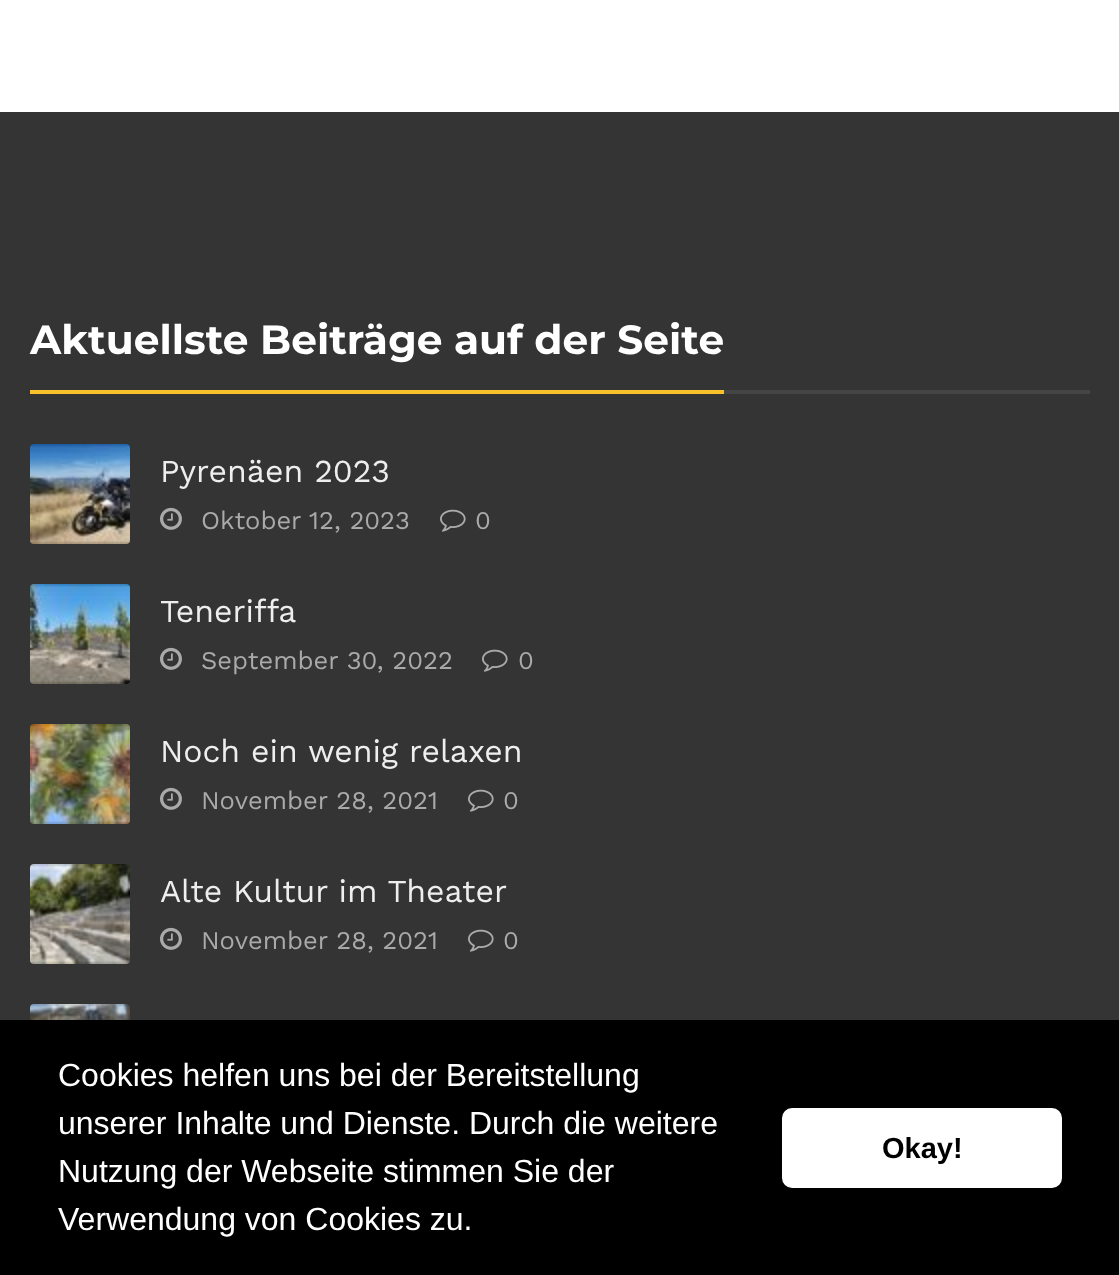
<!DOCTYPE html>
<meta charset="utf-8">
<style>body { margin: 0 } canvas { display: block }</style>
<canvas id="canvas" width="1119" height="1275"></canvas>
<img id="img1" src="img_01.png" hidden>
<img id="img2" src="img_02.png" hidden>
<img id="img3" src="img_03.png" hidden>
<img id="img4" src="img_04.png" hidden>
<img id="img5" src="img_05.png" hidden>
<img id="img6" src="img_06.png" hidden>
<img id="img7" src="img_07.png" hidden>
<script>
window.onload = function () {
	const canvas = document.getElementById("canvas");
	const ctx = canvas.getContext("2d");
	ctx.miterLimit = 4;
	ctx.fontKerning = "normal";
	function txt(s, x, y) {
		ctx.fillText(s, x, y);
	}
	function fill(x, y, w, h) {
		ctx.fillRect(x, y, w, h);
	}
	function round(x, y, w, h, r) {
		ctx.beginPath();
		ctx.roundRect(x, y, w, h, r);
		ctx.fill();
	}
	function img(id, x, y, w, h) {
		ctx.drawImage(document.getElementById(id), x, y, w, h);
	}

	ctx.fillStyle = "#FFFFFF";
	fill(0, 0, 1119, 1275);
	ctx.fillStyle = "#343434";
	fill(0, 112, 1119, 908);
	ctx.fillStyle = "#454545";
	fill(724, 390, 366, 4);
	ctx.fillStyle = "#F8C12C";
	fill(30, 390, 694, 4);
	img("img1", 30, 444, 100, 100);
	img("img2", 160, 507, 22, 23);
	img("img3", 440, 509, 26, 23);
	img("img4", 30, 584, 100, 100);
	img("img2", 160, 647, 22, 23);
	img("img3", 482, 649, 26, 23);
	img("img5", 30, 724, 100, 100);
	img("img2", 160, 787, 22, 23);
	img("img3", 468, 789, 26, 23);
	img("img6", 30, 864, 100, 100);
	img("img2", 160, 927, 22, 23);
	img("img3", 468, 929, 26, 23);
	img("img7", 30, 1004, 100, 16);
	ctx.fillStyle = "#000000";
	fill(0, 1020, 1119, 255);
	ctx.fillStyle = "#FFFFFF";
	round(782, 1108, 280, 80, 10);
	ctx.font = "bold 40.75px Montserrat";
	txt("Aktuellste Beiträge auf der Seite", 30, 354);
	ctx.font = "32px Work Sans";
	ctx.fillStyle = "#EEEEEE";
	txt("Pyrenäen 2023", 160, 482);
	ctx.font = "25.5px Work Sans";
	ctx.fillStyle = "#AAAAAA";
	txt("Oktober 12, 2023", 201, 529);
	txt("0", 475, 529);
	ctx.font = "32px Work Sans";
	ctx.fillStyle = "#EEEEEE";
	txt("Teneriffa", 160, 622);
	ctx.font = "25.5px Work Sans";
	ctx.fillStyle = "#AAAAAA";
	txt("September 30, 2022", 201, 669);
	txt("0", 518, 669);
	ctx.font = "32px Work Sans";
	ctx.fillStyle = "#EEEEEE";
	txt("Noch ein wenig relaxen", 160, 762);
	ctx.font = "25.5px Work Sans";
	ctx.fillStyle = "#AAAAAA";
	txt("November 28, 2021", 201, 809);
	txt("0", 503, 809);
	ctx.font = "32px Work Sans";
	ctx.fillStyle = "#EEEEEE";
	txt("Alte Kultur im Theater", 160, 902);
	ctx.font = "25.5px Work Sans";
	ctx.fillStyle = "#AAAAAA";
	txt("November 28, 2021", 201, 949);
	txt("0", 503, 949);
	ctx.font = "32px Liberation Sans";
	ctx.fillStyle = "#FFFFFF";
	txt("Cookies helfen uns bei der Bereitstellung", 58, 1086);
	txt("unserer Inhalte und Dienste. Durch die weitere", 58, 1134);
	txt("Nutzung der Webseite stimmen Sie der", 58, 1182);
	txt("Verwendung von Cookies zu.", 58, 1230);
	ctx.font = "bold 29px Liberation Sans";
	ctx.fillStyle = "#000000";
	txt("Okay!", 882, 1158);
};
</script>
